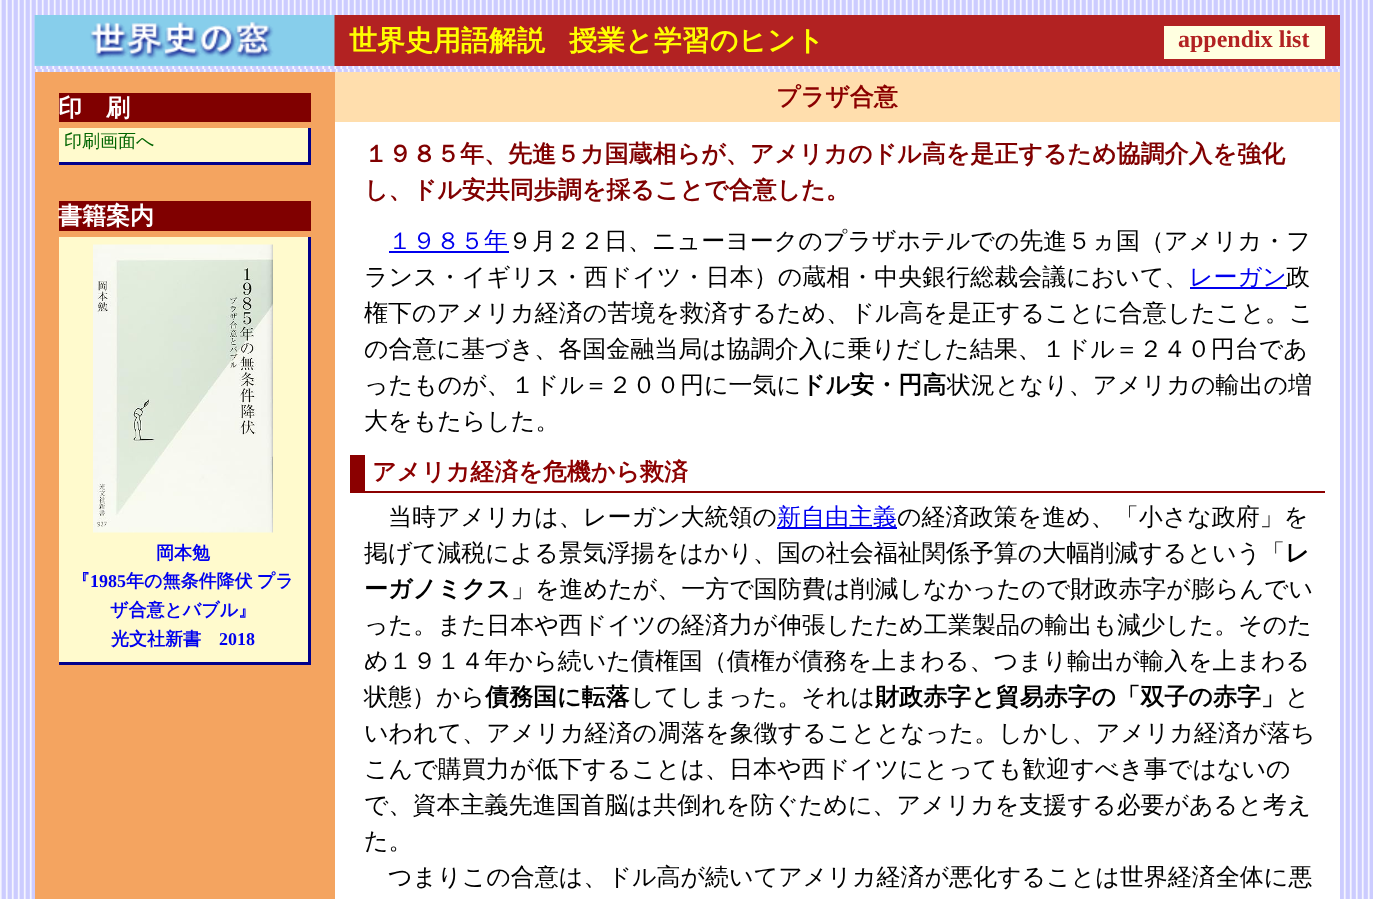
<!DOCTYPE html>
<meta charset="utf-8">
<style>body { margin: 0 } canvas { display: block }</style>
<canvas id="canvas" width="1373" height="899"></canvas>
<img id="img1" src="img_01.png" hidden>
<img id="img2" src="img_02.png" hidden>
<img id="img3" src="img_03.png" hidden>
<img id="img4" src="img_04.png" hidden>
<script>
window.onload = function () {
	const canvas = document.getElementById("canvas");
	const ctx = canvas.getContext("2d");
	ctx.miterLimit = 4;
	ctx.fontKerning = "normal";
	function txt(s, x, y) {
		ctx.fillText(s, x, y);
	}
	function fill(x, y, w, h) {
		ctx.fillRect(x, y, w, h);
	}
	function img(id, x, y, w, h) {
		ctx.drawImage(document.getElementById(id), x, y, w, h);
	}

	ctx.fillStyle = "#FFFFFF";
	fill(0, 0, 1373, 899);
	img("img1", 0, 0, 1373, 899);
	img("img2", 34, 15, 1306, 54);
	ctx.fillStyle = "#B22222";
	fill(334, 15, 1006, 51);
	img("img3", 34, 15, 301, 51);
	ctx.fillStyle = "#FFFFE0";
	fill(1164, 26, 161, 33);
	ctx.fillStyle = "#F4A460";
	fill(35, 72, 300, 827);
	ctx.fillStyle = "#800000";
	fill(59, 93, 252, 29);
	ctx.fillStyle = "#FFFACD";
	fill(59, 128, 249, 34);
	ctx.fillStyle = "#00008B";
	fill(308, 128, 3, 37);
	fill(59, 162, 252, 3);
	ctx.fillStyle = "#800000";
	fill(59, 201, 252, 30);
	ctx.fillStyle = "#FFFACD";
	fill(59, 237, 249, 425);
	ctx.fillStyle = "#00008B";
	fill(308, 237, 3, 428);
	fill(59, 662, 252, 3);
	img("img4", 93, 244, 180, 289);
	ctx.fillStyle = "#FFFFFF";
	fill(335, 122, 1005, 777);
	ctx.fillStyle = "#FFDEAD";
	fill(335, 72, 1005, 50);
	ctx.fillStyle = "#0000EE";
	fill(389, 251, 120, 2);
	fill(1190, 287, 97, 2);
	ctx.fillStyle = "#8B0000";
	fill(350, 491, 975, 2);
	fill(350, 455, 15, 36);
	ctx.fillStyle = "#0000EE";
	fill(777, 527, 120, 2);
	ctx.font = "bold 28px WenQuanYi Zen Hei";
	ctx.fillStyle = "#FFFF00";
	txt("世界史用語解説", 349, 50);
	txt("授業と学習のヒント", 569, 50);
	ctx.font = "bold 24px Liberation Serif";
	ctx.fillStyle = "#B22222";
	txt("appendix list", 1178, 47);
	ctx.font = "bold 24px WenQuanYi Zen Hei";
	ctx.fillStyle = "#FFFFFF";
	txt("印　刷", 58, 116);
	ctx.font = "500 18px WenQuanYi Zen Hei";
	ctx.fillStyle = "#006400";
	txt("印刷画面へ", 64, 147);
	ctx.font = "bold 24px WenQuanYi Zen Hei";
	ctx.fillStyle = "#FFFFFF";
	txt("書籍案内", 58, 224);
	ctx.font = "bold 18px WenQuanYi Zen Hei";
	ctx.fillStyle = "#0000EE";
	txt("岡本勉", 156, 559);
	txt("『", 72, 587);
	ctx.font = "bold 18px Liberation Serif";
	txt("1985", 90, 587);
	ctx.wordSpacing = "-1px";
	ctx.font = "bold 18px WenQuanYi Zen Hei";
	txt("年の無条件降伏 プラ", 126, 587);
	ctx.wordSpacing = "0px";
	txt("ザ合意とバブル』", 110, 616);
	txt("光文社新書", 111, 645);
	ctx.font = "bold 18px Liberation Serif";
	txt("2018", 219, 645);
	ctx.font = "bold 24px WenQuanYi Zen Hei";
	ctx.fillStyle = "#8B0000";
	txt("プラザ合意", 776, 105);
	ctx.fillStyle = "#800000";
	txt("１９８５年、先進５カ国蔵相らが、アメリカのドル高を是正するため協調介入を強化", 364, 162);
	txt("し、ドル安共同歩調を採ることで合意した。", 364, 198);
	ctx.font = "500 24px WenQuanYi Zen Hei";
	ctx.fillStyle = "#0000EE";
	txt("１９８５年", 388, 249);
	ctx.fillStyle = "#000000";
	txt("９月２２日、ニューヨークのプラザホテルでの先進５ヵ国（アメリカ・フ", 508, 249);
	txt("ランス・イギリス・西ドイツ・日本）の蔵相・中央銀行総裁会議において、", 364, 285);
	ctx.fillStyle = "#0000EE";
	txt("レーガン", 1189, 285);
	ctx.fillStyle = "#000000";
	txt("政", 1286, 285);
	txt("権下のアメリカ経済の苦境を救済するため、ドル高を是正することに合意したこと。こ", 364, 321);
	txt("の合意に基づき、各国金融当局は協調介入に乗りだした結果、１ドル＝２４０円台であ", 364, 357);
	txt("ったものが、１ドル＝２００円に一気に", 364, 393);
	ctx.font = "bold 24px WenQuanYi Zen Hei";
	txt("ドル安・円高", 801, 393);
	ctx.font = "500 24px WenQuanYi Zen Hei";
	txt("状況となり、アメリカの輸出の増", 947, 393);
	txt("大をもたらした。", 364, 429);
	ctx.font = "bold 24px WenQuanYi Zen Hei";
	ctx.fillStyle = "#8B0000";
	txt("アメリカ経済を危機から救済", 372, 480);
	ctx.font = "500 24px WenQuanYi Zen Hei";
	ctx.fillStyle = "#000000";
	txt("当時アメリカは、レーガン大統領の", 388, 525);
	ctx.fillStyle = "#0000EE";
	txt("新自由主義", 777, 525);
	ctx.fillStyle = "#000000";
	txt("の経済政策を進め、「小さな政府」を", 897, 525);
	txt("掲げて減税による景気浮揚をはかり、国の社会福祉関係予算の大幅削減するという「", 364, 561);
	ctx.font = "bold 24px WenQuanYi Zen Hei";
	txt("レ", 1285, 561);
	txt("ーガノミクス", 364, 597);
	ctx.font = "500 24px WenQuanYi Zen Hei";
	txt("」を進めたが、一方で国防費は削減しなかったので財政赤字が膨らんでい", 511, 597);
	txt("った。また日本や西ドイツの経済力が伸張したため工業製品の輸出も減少した。そのた", 364, 633);
	txt("め１９１４年から続いた債権国（債権が債務を上まわる、つまり輸出が輸入を上まわる", 364, 669);
	txt("状態）から", 364, 705);
	ctx.font = "bold 24px WenQuanYi Zen Hei";
	txt("債務国に転落", 485, 705);
	ctx.font = "500 24px WenQuanYi Zen Hei";
	txt("してしまった。それは", 630, 705);
	ctx.font = "bold 24px WenQuanYi Zen Hei";
	txt("財政赤字と貿易赤字の「双子の赤字」", 875, 705);
	ctx.font = "500 24px WenQuanYi Zen Hei";
	txt("と", 1285, 705);
	txt("いわれて、アメリカ経済の凋落を象徴することとなった。しかし、アメリカ経済が落ち", 364, 741);
	txt("こんで購買力が低下することは、日本や西ドイツにとっても歓迎すべき事ではないの", 364, 777);
	txt("で、資本主義先進国首脳は共倒れを防ぐために、アメリカを支援する必要があると考え", 364, 813);
	txt("た。", 364, 849);
	txt("つまりこの合意は、ドル高が続いてアメリカ経済が悪化することは世界経済全体に悪", 388, 885);
};
</script>
